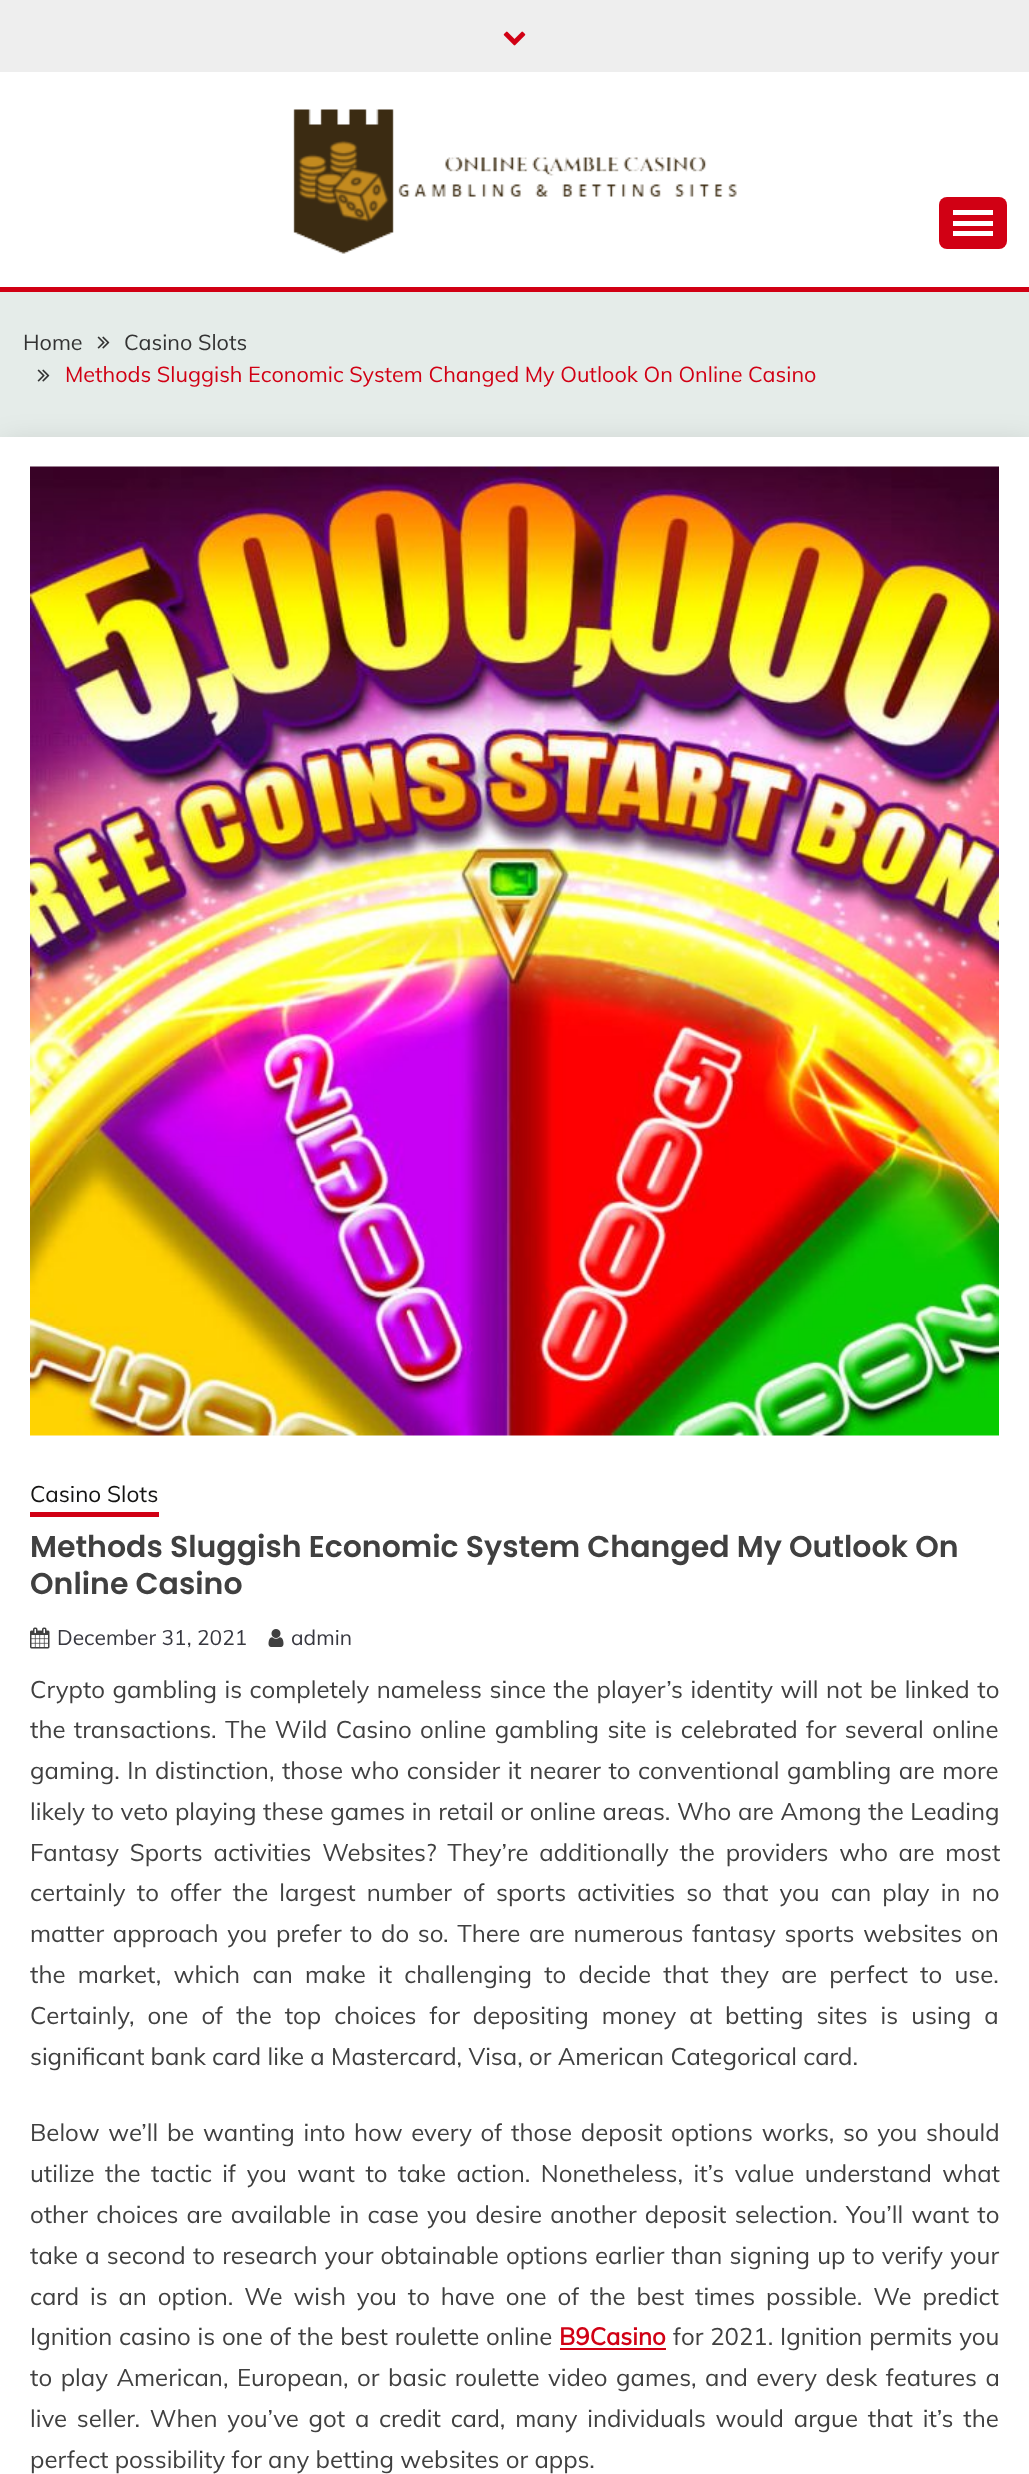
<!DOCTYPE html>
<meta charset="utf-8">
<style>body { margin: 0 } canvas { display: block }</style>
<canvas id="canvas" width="1029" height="2474"></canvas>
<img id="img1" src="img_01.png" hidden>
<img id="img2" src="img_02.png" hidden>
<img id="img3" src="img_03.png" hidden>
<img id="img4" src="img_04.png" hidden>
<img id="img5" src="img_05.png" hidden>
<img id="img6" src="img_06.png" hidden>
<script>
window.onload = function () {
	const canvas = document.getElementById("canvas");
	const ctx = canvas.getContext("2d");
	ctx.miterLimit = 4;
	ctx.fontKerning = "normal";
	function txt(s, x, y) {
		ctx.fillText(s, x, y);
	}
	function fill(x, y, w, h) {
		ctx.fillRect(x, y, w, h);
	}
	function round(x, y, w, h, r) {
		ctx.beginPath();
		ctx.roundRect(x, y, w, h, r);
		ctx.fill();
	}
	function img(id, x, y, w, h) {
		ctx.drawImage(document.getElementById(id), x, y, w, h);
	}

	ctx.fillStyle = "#E5ECE9";
	fill(0, 0, 1029, 2474);
	ctx.fillStyle = "#FFFFFF";
	fill(0, 72, 1029, 215);
	ctx.fillStyle = "#EEEEEE";
	fill(0, 0, 1029, 72);
	img("img1", 503, 31, 23, 15);
	img("img2", 293, 109, 444, 145);
	ctx.fillStyle = "#D10014";
	round(939, 197, 68, 52, 8);
	ctx.fillStyle = "#FFFFFF";
	fill(953, 210, 40, 5);
	fill(953, 221, 40, 5);
	fill(953, 231, 40, 5);
	ctx.fillStyle = "#D10014";
	fill(0, 287, 1029, 5);
	img("img3", 97, 336, 13, 13);
	img("img3", 37, 369, 13, 13);
	ctx.fillStyle = "rgba(0, 0, 0, 0.14)";
	ctx.filter = "blur(15px)";
	ctx.beginPath();
	ctx.rect(3, 444, 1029, 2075);
	ctx.fill();
	ctx.filter = "none";
	ctx.fillStyle = "#FFFFFF";
	fill(0, 437, 1029, 2037);
	img("img4", 30, 466, 969, 970);
	ctx.fillStyle = "#D10014";
	fill(30, 1512, 129, 5);
	img("img5", 30, 1627, 20, 22);
	img("img6", 268, 1629, 16, 18);
	fill(560, 2348, 106, 2);
	ctx.font = "21.6px Muli";
	ctx.fillStyle = "#333333";
	txt("Home", 23, 350);
	txt("Casino Slots", 124, 350);
	ctx.fillStyle = "#D10014";
	txt("Methods Sluggish Economic System Changed My Outlook On Online Casino", 65, 382);
	ctx.font = "22.5px Muli";
	ctx.fillStyle = "#141413";
	txt("Casino Slots", 30, 1502);
	ctx.font = "600 30px Poppins";
	ctx.fillStyle = "#404040";
	txt("Methods Sluggish Economic System Changed My Outlook On", 30, 1557);
	txt("Online Casino", 30, 1594);
	ctx.font = "21px Muli";
	ctx.fillStyle = "#37373F";
	txt("December 31, 2021", 57, 1645);
	txt("admin", 291, 1645);
	ctx.wordSpacing = "1.25px";
	ctx.font = "24px Muli";
	ctx.fillStyle = "#404040";
	txt("Crypto gambling is completely nameless since the player’s identity will not be linked to", 30, 1698);
	ctx.wordSpacing = "2.1px";
	txt("the transactions. The Wild Casino online gambling site is celebrated for several online", 30, 1738);
	ctx.wordSpacing = "1.25px";
	txt("gaming. In distinction, those who consider it nearer to conventional gambling are more", 30, 1779);
	ctx.wordSpacing = "0.4px";
	txt("likely to veto playing these games in retail or online areas. Who are Among the Leading", 30, 1820);
	ctx.wordSpacing = "4.5px";
	txt("Fantasy Sports activities Websites? They’re additionally the providers who are most", 30, 1861);
	ctx.wordSpacing = "4.9px";
	txt("certainly to offer the largest number of sports activities so that you can play in no", 30, 1901);
	ctx.wordSpacing = "2.4px";
	txt("matter approach you prefer to do so. There are numerous fantasy sports websites on", 30, 1942);
	ctx.wordSpacing = "6px";
	txt("the market, which can make it challenging to decide that they are perfect to use.", 30, 1983);
	ctx.wordSpacing = "6.75px";
	txt("Certainly, one of the top choices for depositing money at betting sites is using a", 30, 2024);
	ctx.wordSpacing = "0px";
	txt("significant bank card like a Mastercard, Visa, or American Categorical card.", 30, 2065);
	ctx.wordSpacing = "2.4px";
	txt("Below we’ll be wanting into how every of those deposit options works, so you should", 30, 2141);
	ctx.wordSpacing = "4.25px";
	txt("utilize the tactic if you want to take action. Nonetheless, it’s value understand what", 30, 2182);
	ctx.wordSpacing = "2px";
	txt("other choices are available in case you desire another deposit selection. You’ll want to", 30, 2223);
	ctx.wordSpacing = "0.9px";
	txt("take a second to research your obtainable options earlier than signing up to verify your", 30, 2264);
	ctx.wordSpacing = "4.6px";
	txt("card is an option. We wish you to have one of the best times possible. We predict", 30, 2305);
	ctx.wordSpacing = "0.5px";
	txt("Ignition casino is one of the best roulette online", 30, 2345);
	ctx.wordSpacing = "0px";
	ctx.font = "bold 24px Muli";
	ctx.fillStyle = "#D10014";
	txt("B9Casino", 559, 2345);
	ctx.wordSpacing = "0.5px";
	ctx.font = "24px Muli";
	ctx.fillStyle = "#404040";
	txt("for 2021. Ignition permits you", 673, 2345);
	ctx.wordSpacing = "2.25px";
	txt("to play American, European, or basic roulette video games, and every desk features a", 30, 2386);
	ctx.wordSpacing = "3.5px";
	txt("live seller. When you’ve got a credit card, many individuals would argue that it’s the", 30, 2427);
	ctx.wordSpacing = "0px";
	txt("perfect possibility for any betting websites or apps.", 30, 2468);
};
</script>
